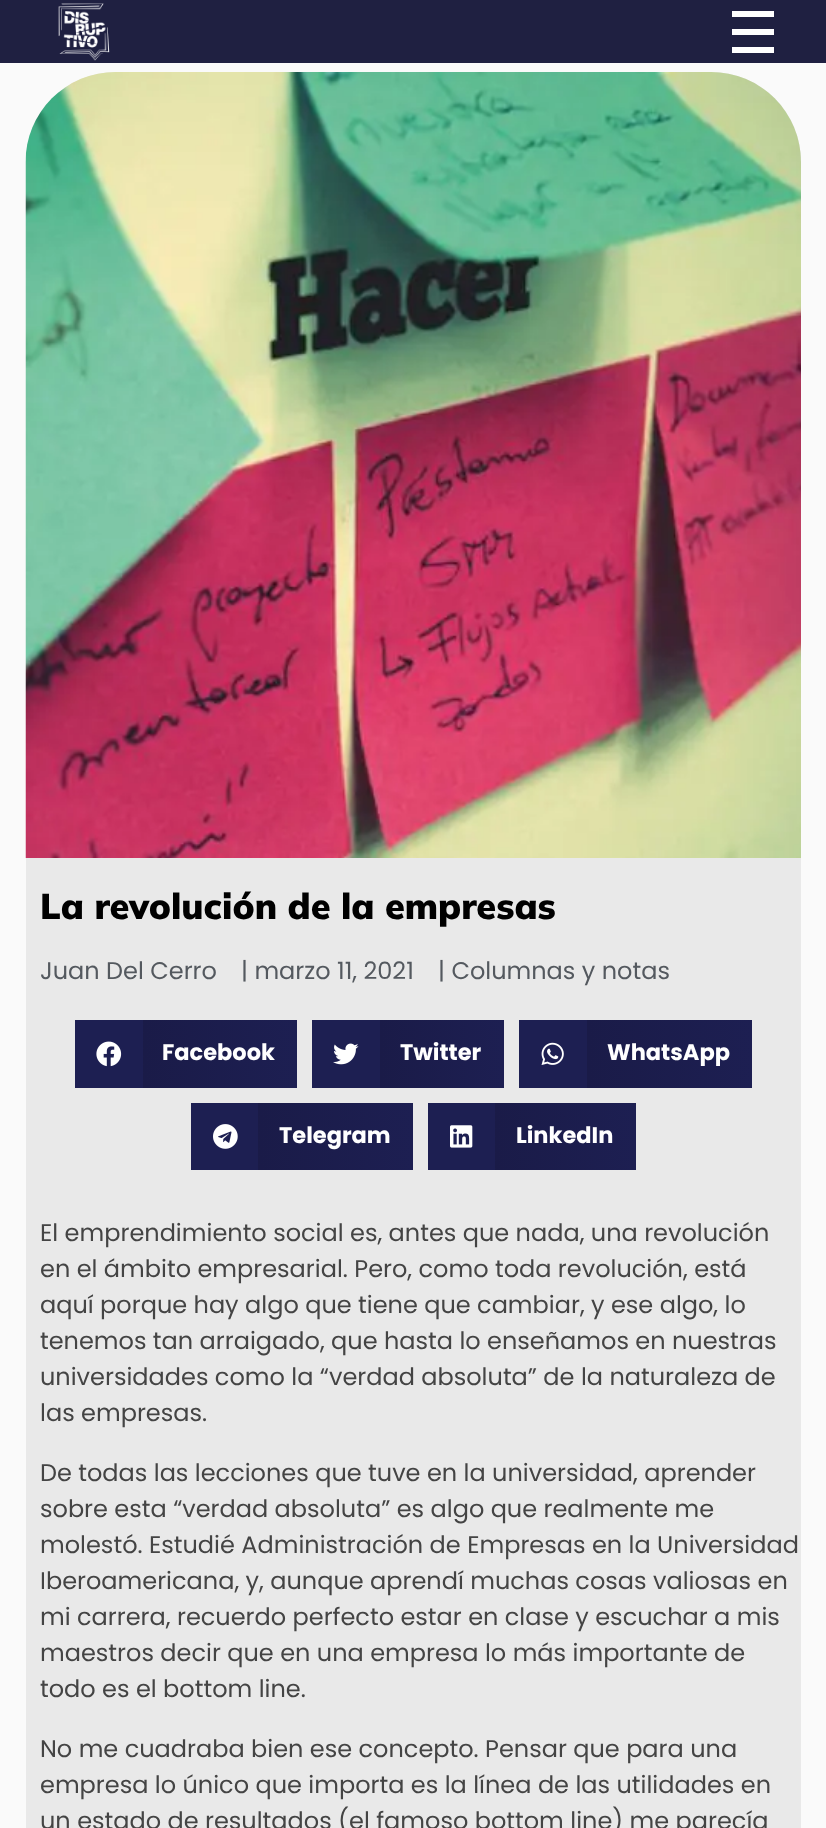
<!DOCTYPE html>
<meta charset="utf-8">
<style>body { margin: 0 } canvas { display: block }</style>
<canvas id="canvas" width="826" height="1828"></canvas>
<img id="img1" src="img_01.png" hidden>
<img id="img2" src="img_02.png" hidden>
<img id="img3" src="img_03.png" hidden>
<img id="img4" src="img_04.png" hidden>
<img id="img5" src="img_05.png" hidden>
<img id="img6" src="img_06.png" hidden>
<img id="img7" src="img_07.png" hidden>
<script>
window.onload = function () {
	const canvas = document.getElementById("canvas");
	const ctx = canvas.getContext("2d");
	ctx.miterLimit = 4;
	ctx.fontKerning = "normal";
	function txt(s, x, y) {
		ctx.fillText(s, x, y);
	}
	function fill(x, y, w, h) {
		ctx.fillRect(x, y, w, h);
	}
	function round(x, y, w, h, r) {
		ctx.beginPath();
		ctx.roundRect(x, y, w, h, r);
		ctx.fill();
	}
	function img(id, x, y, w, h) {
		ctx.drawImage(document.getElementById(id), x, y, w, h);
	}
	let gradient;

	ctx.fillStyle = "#FAFAFA";
	fill(0, 0, 826, 1828);
	ctx.fillStyle = "#1F2041";
	fill(0, 0, 826, 63);
	img("img1", 58, 3, 52, 58);
	ctx.fillStyle = "#FFFFFF";
	fill(732, 11, 42, 6);
	fill(732, 29, 42, 6);
	fill(732, 47, 42, 6);
	ctx.fillStyle = "#E9E9E9";
	round(26, 72, 775, 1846, 90);
	img("img2", 25, 72, 776, 786);
	ctx.fillStyle = "#1D1F52";
	fill(75, 1020, 68, 68);
	img("img3", 96, 1041, 26, 26);
	gradient = ctx.createLinearGradient(143, 1054, 297, 1054);
	gradient.addColorStop(0, "#1A1B48");
	gradient.addColorStop(1, "#1D1F52");
	ctx.fillStyle = gradient;
	fill(143, 1020, 154, 68);
	ctx.fillStyle = "#1D1F52";
	fill(312, 1020, 68, 68);
	img("img4", 333, 1043, 26, 22);
	gradient = ctx.createLinearGradient(380, 1054, 504, 1054);
	gradient.addColorStop(0, "#1A1B48");
	gradient.addColorStop(1, "#1D1F52");
	ctx.fillStyle = gradient;
	fill(380, 1020, 124, 68);
	ctx.fillStyle = "#1D1F52";
	fill(519, 1020, 68, 68);
	img("img5", 541, 1042, 23, 23);
	gradient = ctx.createLinearGradient(587, 1054, 752, 1054);
	gradient.addColorStop(0, "#1A1B48");
	gradient.addColorStop(1, "#1D1F52");
	ctx.fillStyle = gradient;
	fill(587, 1020, 165, 68);
	ctx.fillStyle = "#1D1F52";
	fill(191, 1103, 67, 67);
	img("img6", 213, 1124, 25, 25);
	gradient = ctx.createLinearGradient(258, 1136, 413, 1136);
	gradient.addColorStop(0, "#1A1B48");
	gradient.addColorStop(1, "#1D1F52");
	ctx.fillStyle = gradient;
	fill(258, 1103, 155, 67);
	ctx.fillStyle = "#1D1F52";
	fill(428, 1103, 67, 67);
	img("img7", 450, 1125, 23, 23);
	gradient = ctx.createLinearGradient(495, 1136, 636, 1136);
	gradient.addColorStop(0, "#1A1B48");
	gradient.addColorStop(1, "#1D1F52");
	ctx.fillStyle = gradient;
	fill(495, 1103, 141, 67);
	ctx.font = "900 36px Mulish";
	ctx.fillStyle = "#000000";
	txt("La revolución de la empresas", 40, 919);
	ctx.font = "24px Poppins";
	ctx.fillStyle = "#54595F";
	txt("Juan Del Cerro", 40, 979);
	txt("| marzo 11, 2021", 241, 979);
	txt("| Columnas y notas", 438, 979);
	ctx.font = "bold 22.5px Poppins";
	ctx.fillStyle = "#FFFFFF";
	txt("Facebook", 162, 1060);
	txt("Twitter", 400, 1060);
	txt("WhatsApp", 607, 1060);
	txt("Telegram", 279, 1143);
	txt("LinkedIn", 516, 1143);
	ctx.font = "24px Poppins";
	ctx.fillStyle = "#444444";
	txt("El emprendimiento social es, antes que nada, una revolución", 40, 1241);
	txt("en el ámbito empresarial. Pero, como toda revolución, está", 40, 1277);
	txt("aquí porque hay algo que tiene que cambiar, y ese algo, lo", 40, 1313);
	txt("tenemos tan arraigado, que hasta lo enseñamos en nuestras", 40, 1349);
	txt("universidades como la “verdad absoluta” de la naturaleza de", 40, 1385);
	txt("las empresas.", 40, 1421);
	txt("De todas las lecciones que tuve en la universidad, aprender", 40, 1481);
	txt("sobre esta “verdad absoluta” es algo que realmente me", 40, 1517);
	txt("molestó. Estudié Administración de Empresas en la Universidad", 40, 1553);
	txt("Iberoamericana, y, aunque aprendí muchas cosas valiosas en", 40, 1589);
	txt("mi carrera, recuerdo perfecto estar en clase y escuchar a mis", 40, 1625);
	txt("maestros decir que en una empresa lo más importante de", 40, 1661);
	txt("todo es el bottom line.", 40, 1697);
	txt("No me cuadraba bien ese concepto. Pensar que para una", 40, 1757);
	txt("empresa lo único que importa es la línea de las utilidades en", 40, 1793);
	txt("un estado de resultados (el famoso bottom line) me parecía", 40, 1829);
};
</script>
